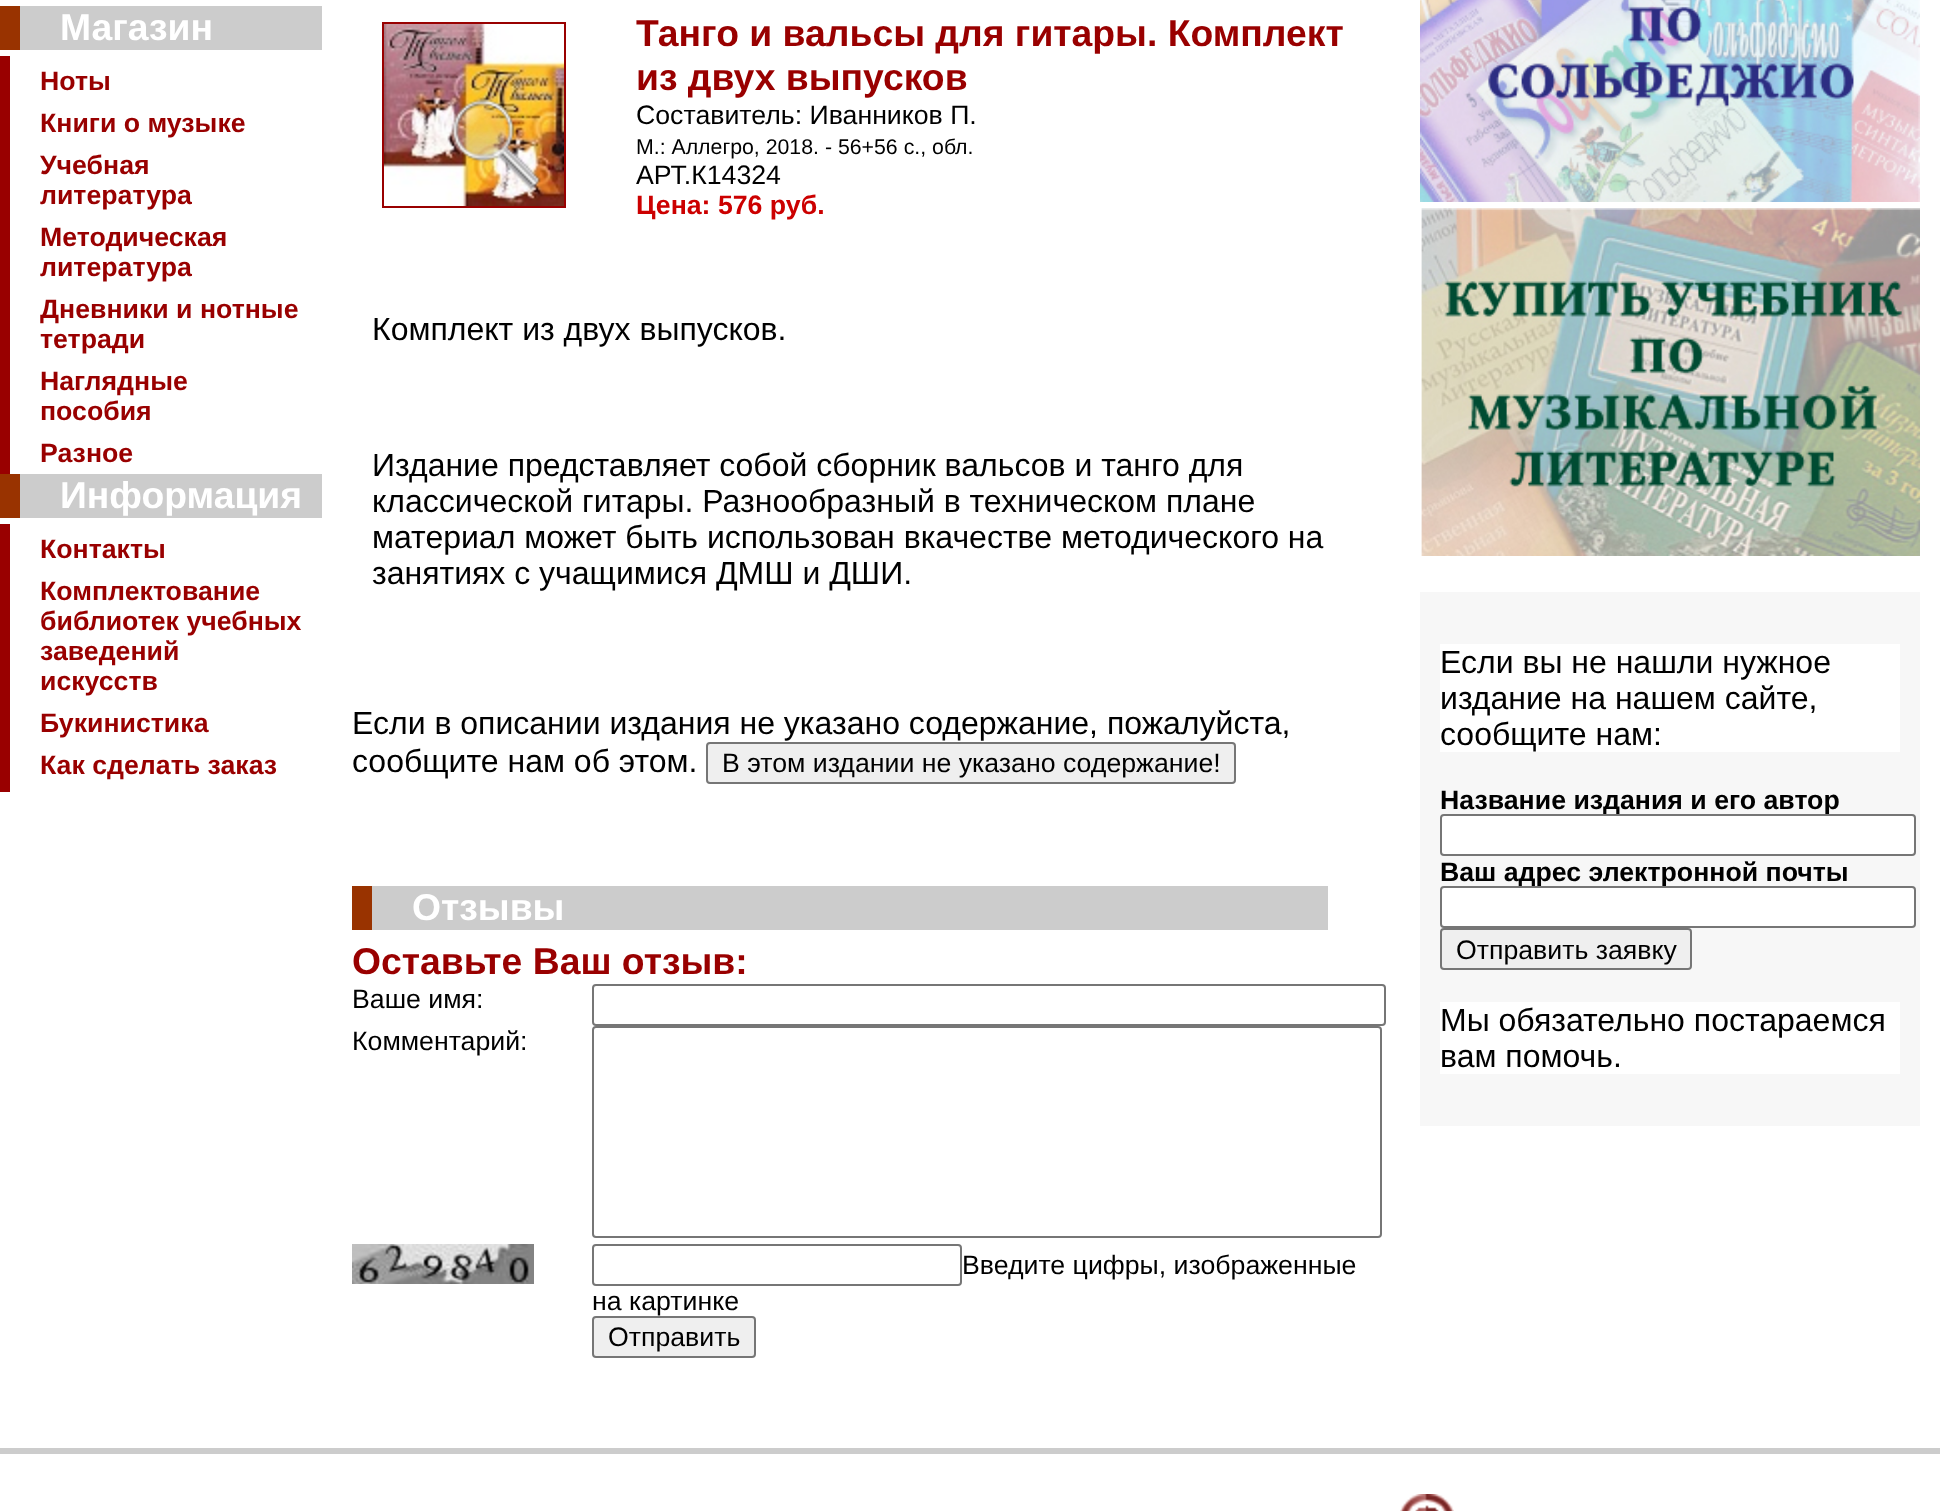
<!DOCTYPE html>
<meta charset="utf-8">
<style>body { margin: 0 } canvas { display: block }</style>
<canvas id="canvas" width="1940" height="1511"></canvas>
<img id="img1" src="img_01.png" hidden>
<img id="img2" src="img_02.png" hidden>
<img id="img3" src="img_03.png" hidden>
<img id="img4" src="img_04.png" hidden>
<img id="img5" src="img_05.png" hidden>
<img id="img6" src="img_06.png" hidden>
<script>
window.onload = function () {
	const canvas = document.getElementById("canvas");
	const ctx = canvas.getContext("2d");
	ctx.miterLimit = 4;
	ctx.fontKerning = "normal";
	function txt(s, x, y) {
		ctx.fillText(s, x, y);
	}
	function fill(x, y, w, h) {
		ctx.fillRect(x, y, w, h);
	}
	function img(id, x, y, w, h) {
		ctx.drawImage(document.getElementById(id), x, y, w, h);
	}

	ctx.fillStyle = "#FFFFFF";
	fill(0, 0, 1940, 1511);
	ctx.fillStyle = "#CCCCCC";
	fill(20, 6, 302, 44);
	ctx.fillStyle = "#993300";
	fill(0, 6, 20, 44);
	ctx.fillStyle = "#990000";
	fill(0, 56, 10, 418);
	ctx.fillStyle = "#CCCCCC";
	fill(20, 474, 302, 44);
	ctx.fillStyle = "#993300";
	fill(0, 474, 20, 44);
	ctx.fillStyle = "#990000";
	fill(0, 524, 10, 268);
	ctx.strokeStyle = "#990000";
	ctx.lineWidth = 2;
	ctx.strokeRect(383, 23, 182, 184);
	img("img1", 384, 24, 180, 182);
	img("img2", 451, 97, 90, 94);
	ctx.fillStyle = "#EFEFEF";
	ctx.beginPath();
	ctx.roundRect(707, 743, 528, 40, 3);
	ctx.fill();
	ctx.strokeStyle = "#767676";
	ctx.stroke();
	ctx.fillStyle = "#CCCCCC";
	fill(372, 886, 956, 44);
	ctx.fillStyle = "#993300";
	fill(352, 886, 20, 44);
	ctx.beginPath();
	ctx.roundRect(593, 985, 792, 40, 3);
	ctx.stroke();
	ctx.beginPath();
	ctx.roundRect(593, 1027, 788, 210, 3);
	ctx.stroke();
	img("img3", 352, 1244, 182, 40);
	ctx.beginPath();
	ctx.roundRect(593, 1245, 368, 40, 3);
	ctx.stroke();
	ctx.fillStyle = "#EFEFEF";
	ctx.beginPath();
	ctx.roundRect(593, 1317, 162, 40, 3);
	ctx.fill();
	ctx.stroke();
	img("img4", 1420, 0, 500, 202);
	img("img5", 1421, 208, 499, 348);
	ctx.fillStyle = "#F7F7F7";
	fill(1420, 592, 500, 534);
	ctx.fillStyle = "#FFFFFF";
	fill(1440, 644, 460, 108);
	ctx.fillStyle = "#EFEFEF";
	ctx.beginPath();
	ctx.roundRect(1441, 929, 250, 40, 3);
	ctx.fill();
	ctx.stroke();
	ctx.fillStyle = "#FFFFFF";
	fill(1440, 1002, 460, 72);
	ctx.fillStyle = "#CCCCCC";
	fill(0, 1448, 1940, 6);
	img("img6", 1400, 1494, 54, 17);
	ctx.font = "bold 37.3px Liberation Sans";
	ctx.fillStyle = "#FFFFFF";
	txt("Магазин", 60, 40);
	ctx.font = "bold 26.7px Liberation Sans";
	ctx.fillStyle = "#990000";
	txt("Ноты", 40, 90);
	txt("Книги о музыке", 40, 132);
	txt("Учебная", 40, 174);
	txt("литература", 40, 204);
	txt("Методическая", 40, 246);
	txt("литература", 40, 276);
	txt("Дневники и нотные", 40, 318);
	txt("тетради", 40, 348);
	txt("Наглядные", 40, 390);
	txt("пособия", 40, 420);
	txt("Разное", 40, 462);
	ctx.font = "bold 37.3px Liberation Sans";
	ctx.fillStyle = "#FFFFFF";
	txt("Информация", 60, 508);
	ctx.font = "bold 26.7px Liberation Sans";
	ctx.fillStyle = "#990000";
	txt("Контакты", 40, 558);
	txt("Комплектование", 40, 600);
	txt("библиотек учебных", 40, 630);
	txt("заведений", 40, 660);
	txt("искусств", 40, 690);
	txt("Букинистика", 40, 732);
	txt("Как сделать заказ", 40, 774);
	ctx.font = "bold 37.3px Liberation Sans";
	txt("Танго и вальсы для гитары. Комплект", 636, 46);
	txt("из двух выпусков", 636, 90);
	ctx.font = "26.7px Liberation Sans";
	ctx.fillStyle = "#000000";
	txt("Составитель: Иванников П.", 636, 124);
	ctx.font = "21.3px Liberation Sans";
	txt("М.: Аллегро, 2018. - 56+56 с., обл.", 636, 154);
	ctx.font = "26.7px Liberation Sans";
	txt("АРТ.К14324", 636, 184);
	ctx.font = "bold 26.7px Liberation Sans";
	ctx.fillStyle = "#CC0000";
	txt("Цена: 576 руб.", 636, 214);
	ctx.font = "32px Liberation Sans";
	ctx.fillStyle = "#000000";
	txt("Комплект из двух выпусков.", 372, 340);
	txt("Издание представляет собой сборник вальсов и танго для", 372, 476);
	txt("классической гитары. Разнообразный в техническом плане", 372, 512);
	txt("материал может быть использован вкачестве методического на", 372, 548);
	txt("занятиях с учащимися ДМШ и ДШИ.", 372, 584);
	txt("Если в описании издания не указано содержание, пожалуйста,", 352, 734);
	txt("сообщите нам об этом.", 352, 772);
	ctx.font = "26.7px Liberation Sans";
	txt("В этом издании не указано содержание!", 722, 772);
	ctx.font = "bold 37.3px Liberation Sans";
	ctx.fillStyle = "#FFFFFF";
	txt("Отзывы", 412, 920);
	ctx.fillStyle = "#990000";
	txt("Оставьте Ваш отзыв:", 352, 974);
	ctx.font = "26.7px Liberation Sans";
	ctx.fillStyle = "#000000";
	txt("Ваше имя:", 352, 1008);
	txt("Комментарий:", 352, 1050);
	txt("Введите цифры, изображенные", 962, 1274);
	txt("на картинке", 592, 1310);
	txt("Отправить", 608, 1346);
	ctx.font = "32px Liberation Sans";
	txt("Если вы не нашли нужное", 1440, 673);
	txt("издание на нашем сайте,", 1440, 709);
	txt("сообщите нам:", 1440, 745);
	ctx.font = "bold 26.7px Liberation Sans";
	txt("Название издания и его автор", 1440, 809);
	ctx.fillStyle = "#FFFFFF";
	ctx.beginPath();
	ctx.roundRect(1441, 815, 474, 40, 3);
	ctx.fill();
	ctx.stroke();
	ctx.fillStyle = "#000000";
	txt("Ваш адрес электронной почты", 1440, 881);
	ctx.fillStyle = "#FFFFFF";
	ctx.beginPath();
	ctx.roundRect(1441, 887, 474, 40, 3);
	ctx.fill();
	ctx.stroke();
	ctx.font = "26.7px Liberation Sans";
	ctx.fillStyle = "#000000";
	txt("Отправить заявку", 1456, 959);
	ctx.font = "32px Liberation Sans";
	txt("Мы обязательно постараемся", 1440, 1031);
	txt("вам помочь.", 1440, 1067);
};
</script>
